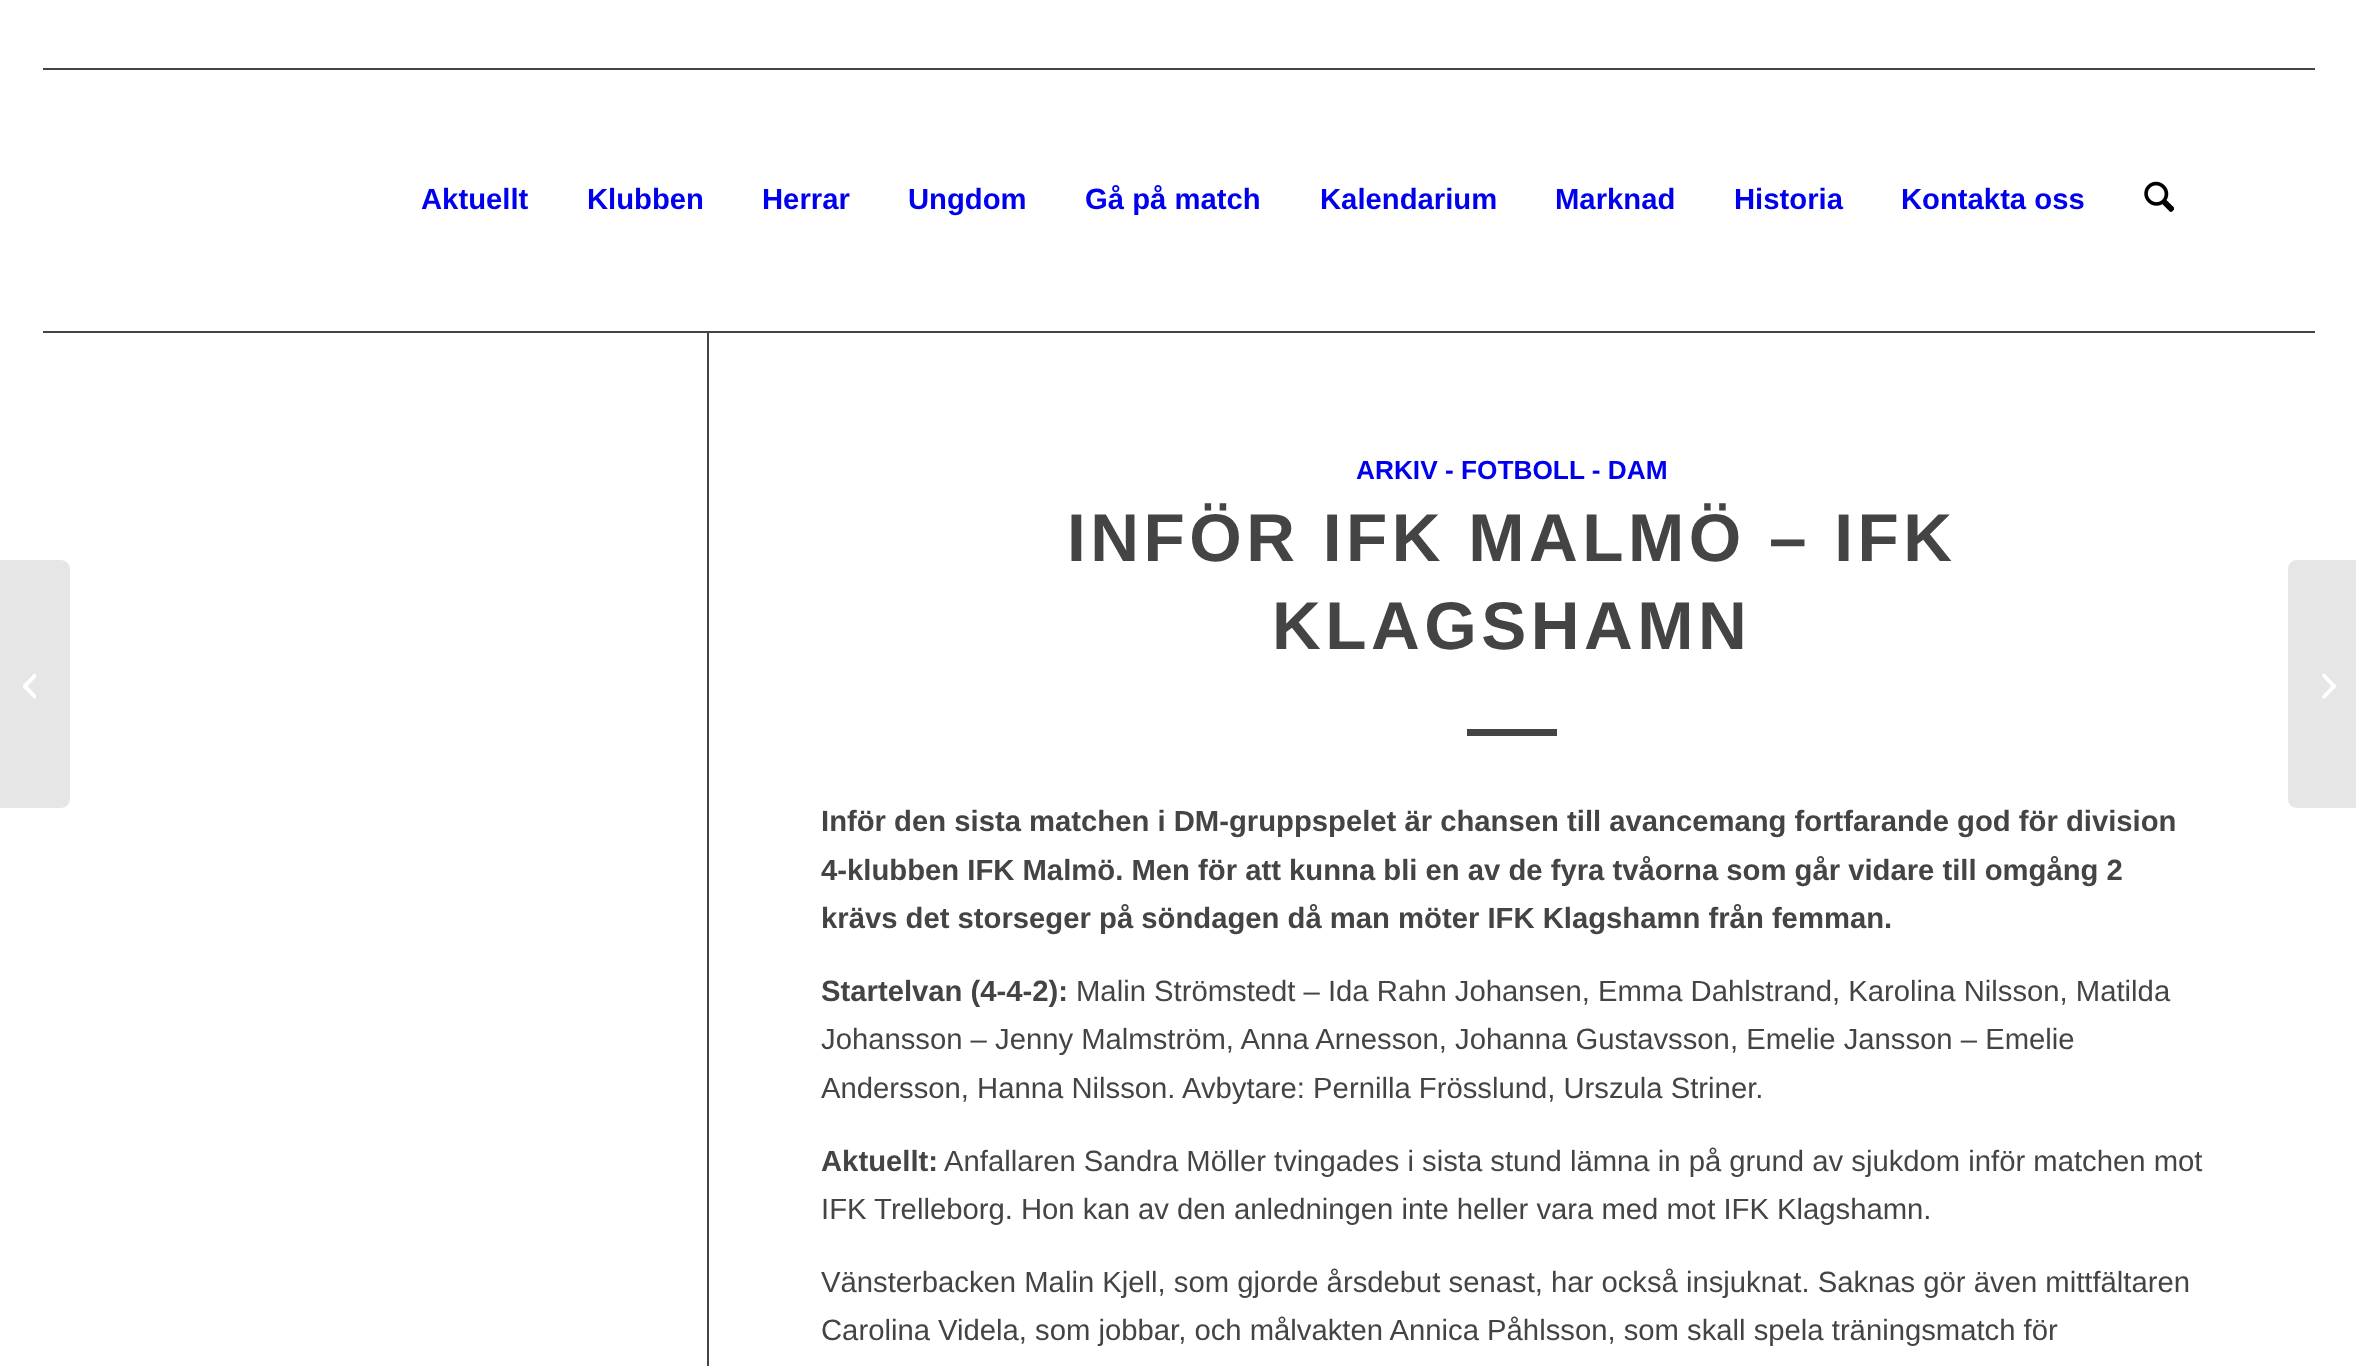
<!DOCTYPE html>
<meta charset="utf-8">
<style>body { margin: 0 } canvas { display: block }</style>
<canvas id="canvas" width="2356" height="1366"></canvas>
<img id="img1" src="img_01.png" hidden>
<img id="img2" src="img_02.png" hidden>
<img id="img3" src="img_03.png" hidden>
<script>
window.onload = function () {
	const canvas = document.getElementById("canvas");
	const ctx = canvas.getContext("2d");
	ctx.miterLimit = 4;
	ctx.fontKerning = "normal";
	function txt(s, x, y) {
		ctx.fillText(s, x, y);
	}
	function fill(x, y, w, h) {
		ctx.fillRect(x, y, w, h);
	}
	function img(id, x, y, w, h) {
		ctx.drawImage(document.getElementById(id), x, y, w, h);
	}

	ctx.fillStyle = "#FFFFFF";
	fill(0, 0, 2356, 1366);
	ctx.fillStyle = "#444444";
	fill(43, 68, 2272, 2);
	img("img1", 2144, 181, 30, 31);
	ctx.fillStyle = "#E6E6E6";
	ctx.beginPath();
	ctx.roundRect(0, 560, 70, 248, [0, 9, 9, 0]);
	ctx.fill();
	img("img2", 23, 673, 13, 26);
	ctx.fillStyle = "#444444";
	fill(43, 331, 2272, 2);
	fill(707, 333, 2, 1033);
	fill(1467, 729, 90, 7);
	ctx.fillStyle = "#E6E6E6";
	ctx.beginPath();
	ctx.moveTo(2297, 560);
	ctx.lineTo(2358, 560);
	ctx.lineTo(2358, 808);
	ctx.lineTo(2297, 808);
	ctx.bezierCurveTo(2292, 808, 2288, 804, 2288, 799);
	ctx.lineTo(2288, 569);
	ctx.bezierCurveTo(2288, 564, 2292, 560, 2297, 560);
	ctx.closePath();
	ctx.fill();
	img("img3", 2322, 673, 14, 26);
	ctx.font = "bold 29.25px Liberation Sans";
	ctx.fillStyle = "#0000EE";
	txt("Aktuellt", 421, 209);
	txt("Klubben", 587, 209);
	txt("Herrar", 762, 209);
	txt("Ungdom", 908, 209);
	txt("Gå på match", 1085, 209);
	txt("Kalendarium", 1320, 209);
	txt("Marknad", 1555, 209);
	txt("Historia", 1734, 209);
	txt("Kontakta oss", 1901, 209);
	ctx.font = "bold 26.25px Liberation Sans";
	txt("ARKIV - FOTBOLL - DAM", 1356, 479);
	ctx.letterSpacing = "4.5px";
	ctx.font = "bold 67.5px Liberation Sans";
	ctx.fillStyle = "#444444";
	txt("INFÖR IFK MALMÖ – IFK", 1067, 561);
	txt("KLAGSHAMN", 1272, 649);
	ctx.letterSpacing = "0px";
	ctx.font = "bold 29.25px Liberation Sans";
	txt("Inför den sista matchen i DM-gruppspelet är chansen till avancemang fortfarande god för division", 821, 831);
	txt("4-klubben IFK Malmö. Men för att kunna bli en av de fyra tvåorna som går vidare till omgång 2", 821, 880);
	txt("krävs det storseger på söndagen då man möter IFK Klagshamn från femman.", 821, 928);
	txt("Startelvan (4-4-2):", 821, 1001);
	ctx.font = "29.25px Liberation Sans";
	txt("Malin Strömstedt – Ida Rahn Johansen, Emma Dahlstrand, Karolina Nilsson, Matilda", 1076, 1001);
	txt("Johansson – Jenny Malmström, Anna Arnesson, Johanna Gustavsson, Emelie Jansson – Emelie", 821, 1049);
	txt("Andersson, Hanna Nilsson. Avbytare: Pernilla Frösslund, Urszula Striner.", 821, 1098);
	ctx.font = "bold 29.25px Liberation Sans";
	txt("Aktuellt:", 821, 1171);
	ctx.font = "29.25px Liberation Sans";
	txt("Anfallaren Sandra Möller tvingades i sista stund lämna in på grund av sjukdom inför matchen mot", 944, 1171);
	txt("IFK Trelleborg. Hon kan av den anledningen inte heller vara med mot IFK Klagshamn.", 821, 1219);
	txt("Vänsterbacken Malin Kjell, som gjorde årsdebut senast, har också insjuknat. Saknas gör även mittfältaren", 821, 1292);
	txt("Carolina Videla, som jobbar, och målvakten Annica Påhlsson, som skall spela träningsmatch för", 821, 1340);
};
</script>
